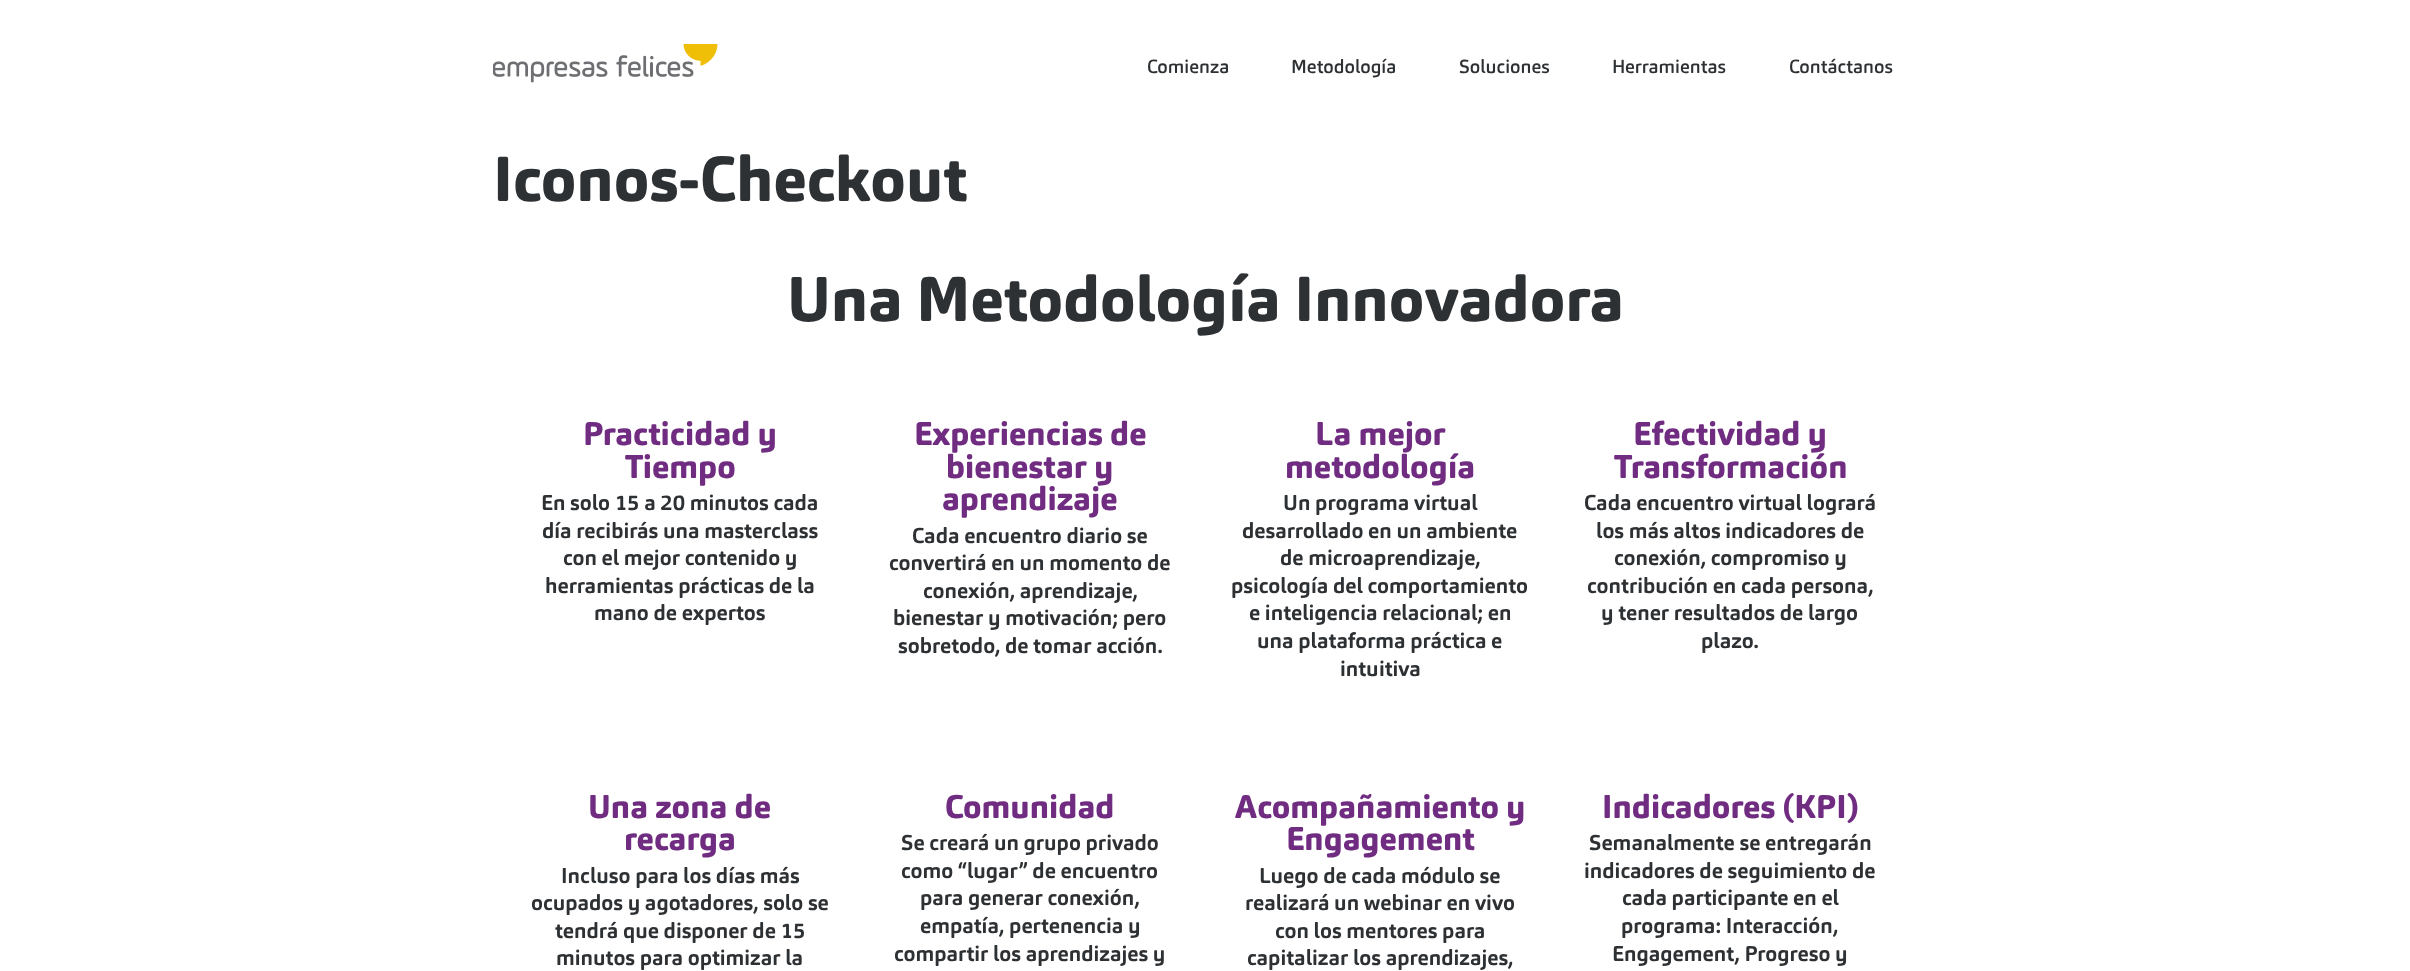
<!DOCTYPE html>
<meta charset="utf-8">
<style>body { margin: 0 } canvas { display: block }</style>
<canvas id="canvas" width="2410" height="971"></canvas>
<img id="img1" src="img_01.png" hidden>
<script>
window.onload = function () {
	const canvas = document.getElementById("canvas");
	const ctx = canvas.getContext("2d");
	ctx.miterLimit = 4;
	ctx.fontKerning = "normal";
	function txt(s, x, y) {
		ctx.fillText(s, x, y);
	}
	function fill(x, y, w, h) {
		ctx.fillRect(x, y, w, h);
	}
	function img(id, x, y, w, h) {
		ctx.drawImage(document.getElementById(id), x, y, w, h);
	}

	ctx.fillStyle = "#FFFFFF";
	fill(0, 0, 2410, 971);
	img("img1", 493, 44, 225, 39);
	ctx.font = "500 18.75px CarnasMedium";
	ctx.fillStyle = "#2E3134";
	txt("Comienza", 1147, 73);
	txt("Metodología", 1291, 73);
	txt("Soluciones", 1459, 73);
	txt("Herramientas", 1612, 73);
	txt("Contáctanos", 1789, 73);
	ctx.font = "800 62.5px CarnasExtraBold";
	txt("Iconos-Checkout", 493, 201);
	txt("Una Metodología Innovadora", 787, 321);
	ctx.font = "800 32.5px CarnasExtraBold";
	ctx.fillStyle = "#702C80";
	txt("Practicidad y", 583, 445);
	txt("Tiempo", 624, 478);
	ctx.font = "bold 21.25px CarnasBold";
	ctx.fillStyle = "#2E3134";
	txt("En solo 15 a 20 minutos cada", 541, 510);
	txt("día recibirás una masterclass", 542, 538);
	txt("con el mejor contenido y", 563, 565);
	txt("herramientas prácticas de la", 545, 593);
	txt("mano de expertos", 594, 620);
	ctx.font = "800 32.5px CarnasExtraBold";
	ctx.fillStyle = "#702C80";
	txt("Experiencias de", 914, 445);
	txt("bienestar y", 946, 478);
	txt("aprendizaje", 942, 510);
	ctx.font = "bold 21.25px CarnasBold";
	ctx.fillStyle = "#2E3134";
	txt("Cada encuentro diario se", 912, 543);
	txt("convertirá en un momento de", 889, 570);
	txt("conexión, aprendizaje,", 923, 598);
	txt("bienestar y motivación; pero", 893, 625);
	txt("sobretodo, de tomar acción.", 898, 653);
	ctx.font = "800 32.5px CarnasExtraBold";
	ctx.fillStyle = "#702C80";
	txt("La mejor", 1315, 445);
	txt("metodología", 1285, 478);
	ctx.font = "bold 21.25px CarnasBold";
	ctx.fillStyle = "#2E3134";
	txt("Un programa virtual", 1283, 510);
	txt("desarrollado en un ambiente", 1242, 538);
	txt("de microaprendizaje,", 1280, 565);
	txt("psicología del comportamiento", 1231, 593);
	txt("e inteligencia relacional; en", 1249, 620);
	txt("una plataforma práctica e", 1257, 648);
	txt("intuitiva", 1340, 676);
	ctx.font = "800 32.5px CarnasExtraBold";
	ctx.fillStyle = "#702C80";
	txt("Efectividad y", 1633, 445);
	txt("Transformación", 1613, 478);
	ctx.font = "bold 21.25px CarnasBold";
	ctx.fillStyle = "#2E3134";
	txt("Cada encuentro virtual logrará", 1584, 510);
	txt("los más altos indicadores de", 1596, 538);
	txt("conexión, compromiso y", 1614, 565);
	txt("contribución en cada persona,", 1587, 593);
	txt("y tener resultados de largo", 1601, 620);
	txt("plazo.", 1701, 648);
	ctx.font = "800 32.5px CarnasExtraBold";
	ctx.fillStyle = "#702C80";
	txt("Una zona de", 588, 818);
	txt("recarga", 624, 850);
	ctx.font = "bold 21.25px CarnasBold";
	ctx.fillStyle = "#2E3134";
	txt("Incluso para los días más", 561, 883);
	txt("ocupados y agotadores, solo se", 531, 910);
	txt("tendrá que disponer de 15", 555, 938);
	txt("minutos para optimizar la", 556, 965);
	ctx.font = "800 32.5px CarnasExtraBold";
	ctx.fillStyle = "#702C80";
	txt("Comunidad", 945, 818);
	ctx.font = "bold 21.25px CarnasBold";
	ctx.fillStyle = "#2E3134";
	txt("Se creará un grupo privado", 901, 850);
	txt("como “lugar” de encuentro", 901, 878);
	txt("para generar conexión,", 920, 905);
	txt("empatía, pertenencia y", 920, 933);
	txt("compartir los aprendizajes y", 894, 961);
	ctx.font = "800 32.5px CarnasExtraBold";
	ctx.fillStyle = "#702C80";
	txt("Acompañamiento y", 1235, 818);
	txt("Engagement", 1286, 850);
	ctx.font = "bold 21.25px CarnasBold";
	ctx.fillStyle = "#2E3134";
	txt("Luego de cada módulo se", 1259, 883);
	txt("realizará un webinar en vivo", 1245, 910);
	txt("con los mentores para", 1275, 938);
	txt("capitalizar los aprendizajes,", 1247, 965);
	ctx.font = "800 32.5px CarnasExtraBold";
	ctx.fillStyle = "#702C80";
	txt("Indicadores (KPI)", 1602, 818);
	ctx.font = "bold 21.25px CarnasBold";
	ctx.fillStyle = "#2E3134";
	txt("Semanalmente se entregarán", 1589, 850);
	txt("indicadores de seguimiento de", 1584, 878);
	txt("cada participante en el", 1622, 905);
	txt("programa: Interacción,", 1621, 933);
	txt("Engagement, Progreso y", 1612, 961);
};
</script>
